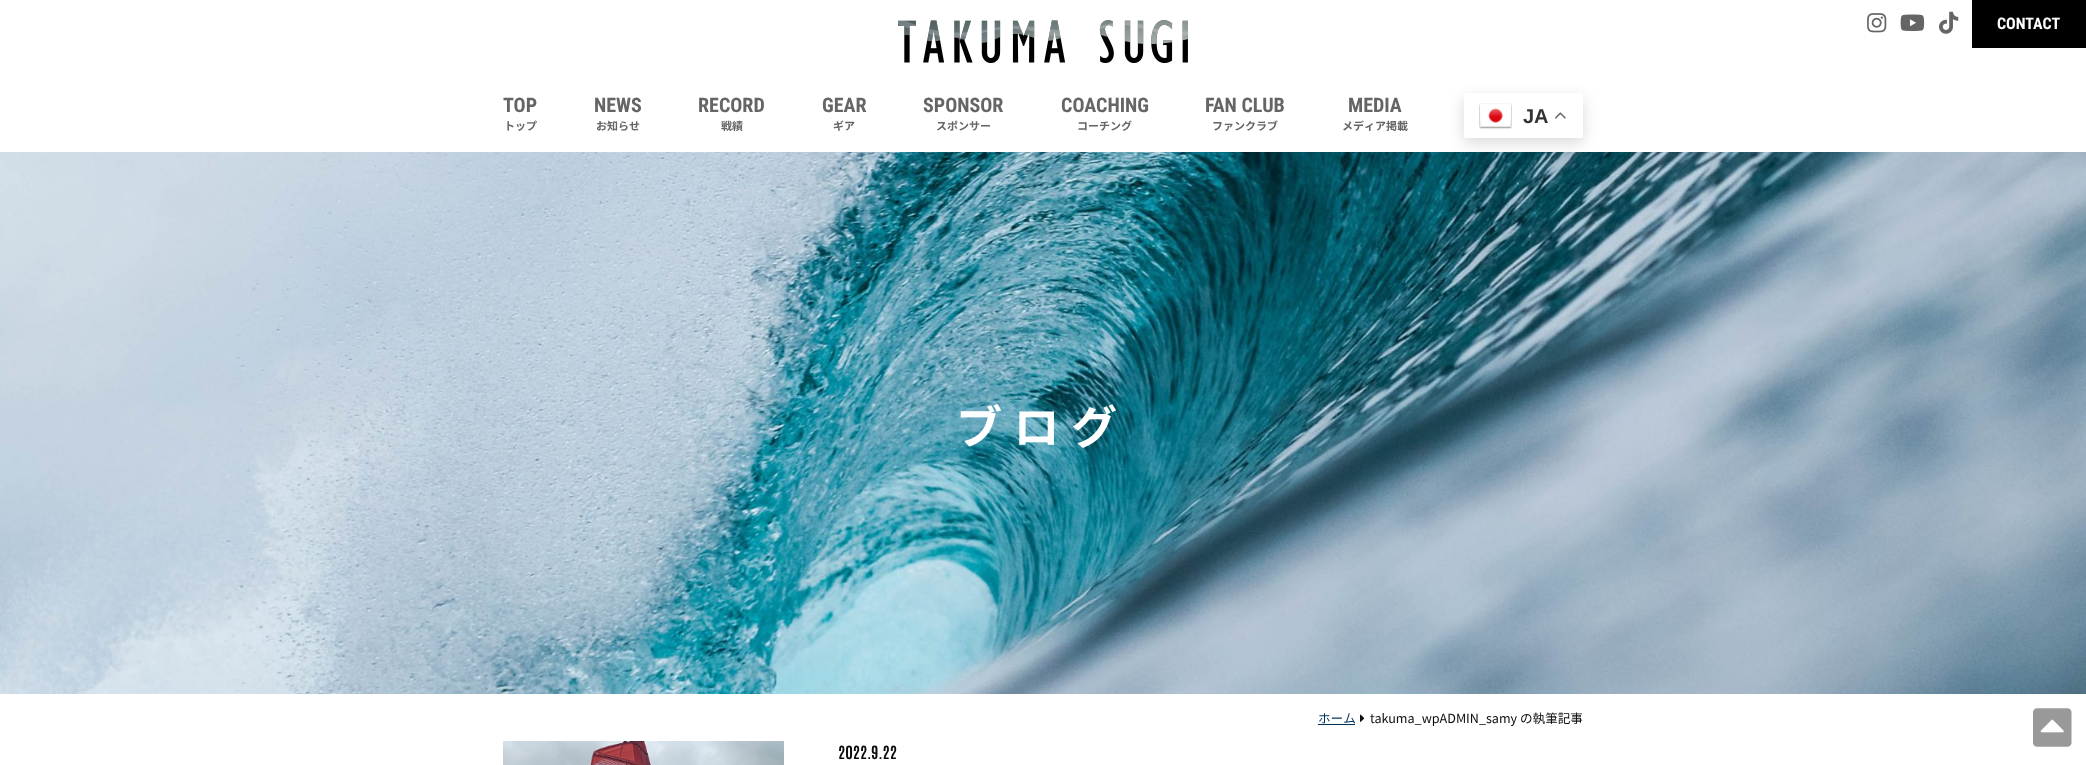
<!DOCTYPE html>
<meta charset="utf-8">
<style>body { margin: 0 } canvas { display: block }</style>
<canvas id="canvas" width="2086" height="765"></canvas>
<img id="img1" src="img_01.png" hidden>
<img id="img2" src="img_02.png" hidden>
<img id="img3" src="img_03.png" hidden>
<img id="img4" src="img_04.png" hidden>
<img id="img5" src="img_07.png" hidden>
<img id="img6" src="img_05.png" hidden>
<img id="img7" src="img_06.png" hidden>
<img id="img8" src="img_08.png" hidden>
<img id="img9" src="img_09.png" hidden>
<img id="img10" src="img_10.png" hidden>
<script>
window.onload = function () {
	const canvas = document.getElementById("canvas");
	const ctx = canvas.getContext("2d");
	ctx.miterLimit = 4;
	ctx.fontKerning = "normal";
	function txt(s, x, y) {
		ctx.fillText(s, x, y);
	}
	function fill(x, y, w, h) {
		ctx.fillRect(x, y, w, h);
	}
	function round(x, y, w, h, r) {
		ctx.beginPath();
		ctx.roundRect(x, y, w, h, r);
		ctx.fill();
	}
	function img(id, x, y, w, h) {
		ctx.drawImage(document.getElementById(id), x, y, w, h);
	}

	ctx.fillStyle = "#FFFFFF";
	fill(0, 0, 2086, 765);
	img("img1", 898, 20, 290, 43);
	img("img2", 1867, 13, 20, 20);
	img("img3", 1900, 14, 25, 17);
	img("img4", 1939, 11, 20, 23);
	ctx.fillStyle = "#000000";
	fill(1972, 0, 114, 48);
	img("img5", 0, 152, 2086, 542);
	ctx.fillStyle = "rgba(0, 0, 0, 0.15)";
	ctx.filter = "blur(7.5px)";
	ctx.beginPath();
	ctx.roundRect(1464, 98, 119, 45, 2);
	ctx.fill();
	ctx.filter = "none";
	ctx.fillStyle = "#FFFFFF";
	round(1464, 93, 119, 45, 2);
	img("img6", 1479, 103, 33, 26);
	img("img7", 1555, 112, 11, 7);
	ctx.fillStyle = "#02315C";
	fill(1318, 724, 37, 1);
	img("img8", 1360, 714, 5, 8);
	img("img9", 503, 741, 281, 24);
	img("img10", 2033, 708, 39, 39);
	ctx.font = "bold 16px Roboto Condensed";
	ctx.fillStyle = "#FFFFFF";
	txt("CONTACT", 1997, 29);
	ctx.font = "bold 20px Roboto Condensed";
	ctx.fillStyle = "#656565";
	txt("TOP", 503, 112);
	ctx.font = "bold 11px Noto Sans JP";
	txt("トップ", 504, 130);
	ctx.font = "bold 20px Roboto Condensed";
	txt("NEWS", 594, 112);
	ctx.font = "bold 11px Noto Sans JP";
	txt("お知らせ", 596, 130);
	ctx.font = "bold 20px Roboto Condensed";
	txt("RECORD", 698, 112);
	ctx.font = "bold 11px Noto Sans JP";
	txt("戦績", 721, 130);
	ctx.font = "bold 20px Roboto Condensed";
	txt("GEAR", 822, 112);
	ctx.font = "bold 11px Noto Sans JP";
	txt("ギア", 833, 130);
	ctx.font = "bold 20px Roboto Condensed";
	txt("SPONSOR", 923, 112);
	ctx.font = "bold 11px Noto Sans JP";
	txt("スポンサー", 936, 130);
	ctx.font = "bold 20px Roboto Condensed";
	txt("COACHING", 1061, 112);
	ctx.font = "bold 11px Noto Sans JP";
	txt("コーチング", 1077, 130);
	ctx.font = "bold 20px Roboto Condensed";
	txt("FAN CLUB", 1205, 112);
	ctx.font = "bold 11px Noto Sans JP";
	txt("ファンクラブ", 1212, 130);
	ctx.font = "bold 20px Roboto Condensed";
	txt("MEDIA", 1348, 112);
	ctx.font = "bold 11px Noto Sans JP";
	txt("メディア掲載", 1342, 130);
	ctx.font = "bold 20px Liberation Sans";
	ctx.fillStyle = "#333333";
	txt("JA", 1523, 123);
	ctx.letterSpacing = "11.5px";
	ctx.font = "bold 46px Noto Sans JP";
	ctx.fillStyle = "#FFFFFF";
	txt("ブログ", 956, 444);
	ctx.letterSpacing = "0px";
	ctx.font = "12.6px Noto Sans JP";
	ctx.fillStyle = "#02315C";
	txt("ホーム", 1318, 723);
	ctx.fillStyle = "#0D0D0D";
	txt("takuma_wpADMIN_samy の執筆記事", 1370, 723);
	ctx.font = "bold 15.5px Antonio";
	txt("2022.9.22", 838, 759);
};
</script>
